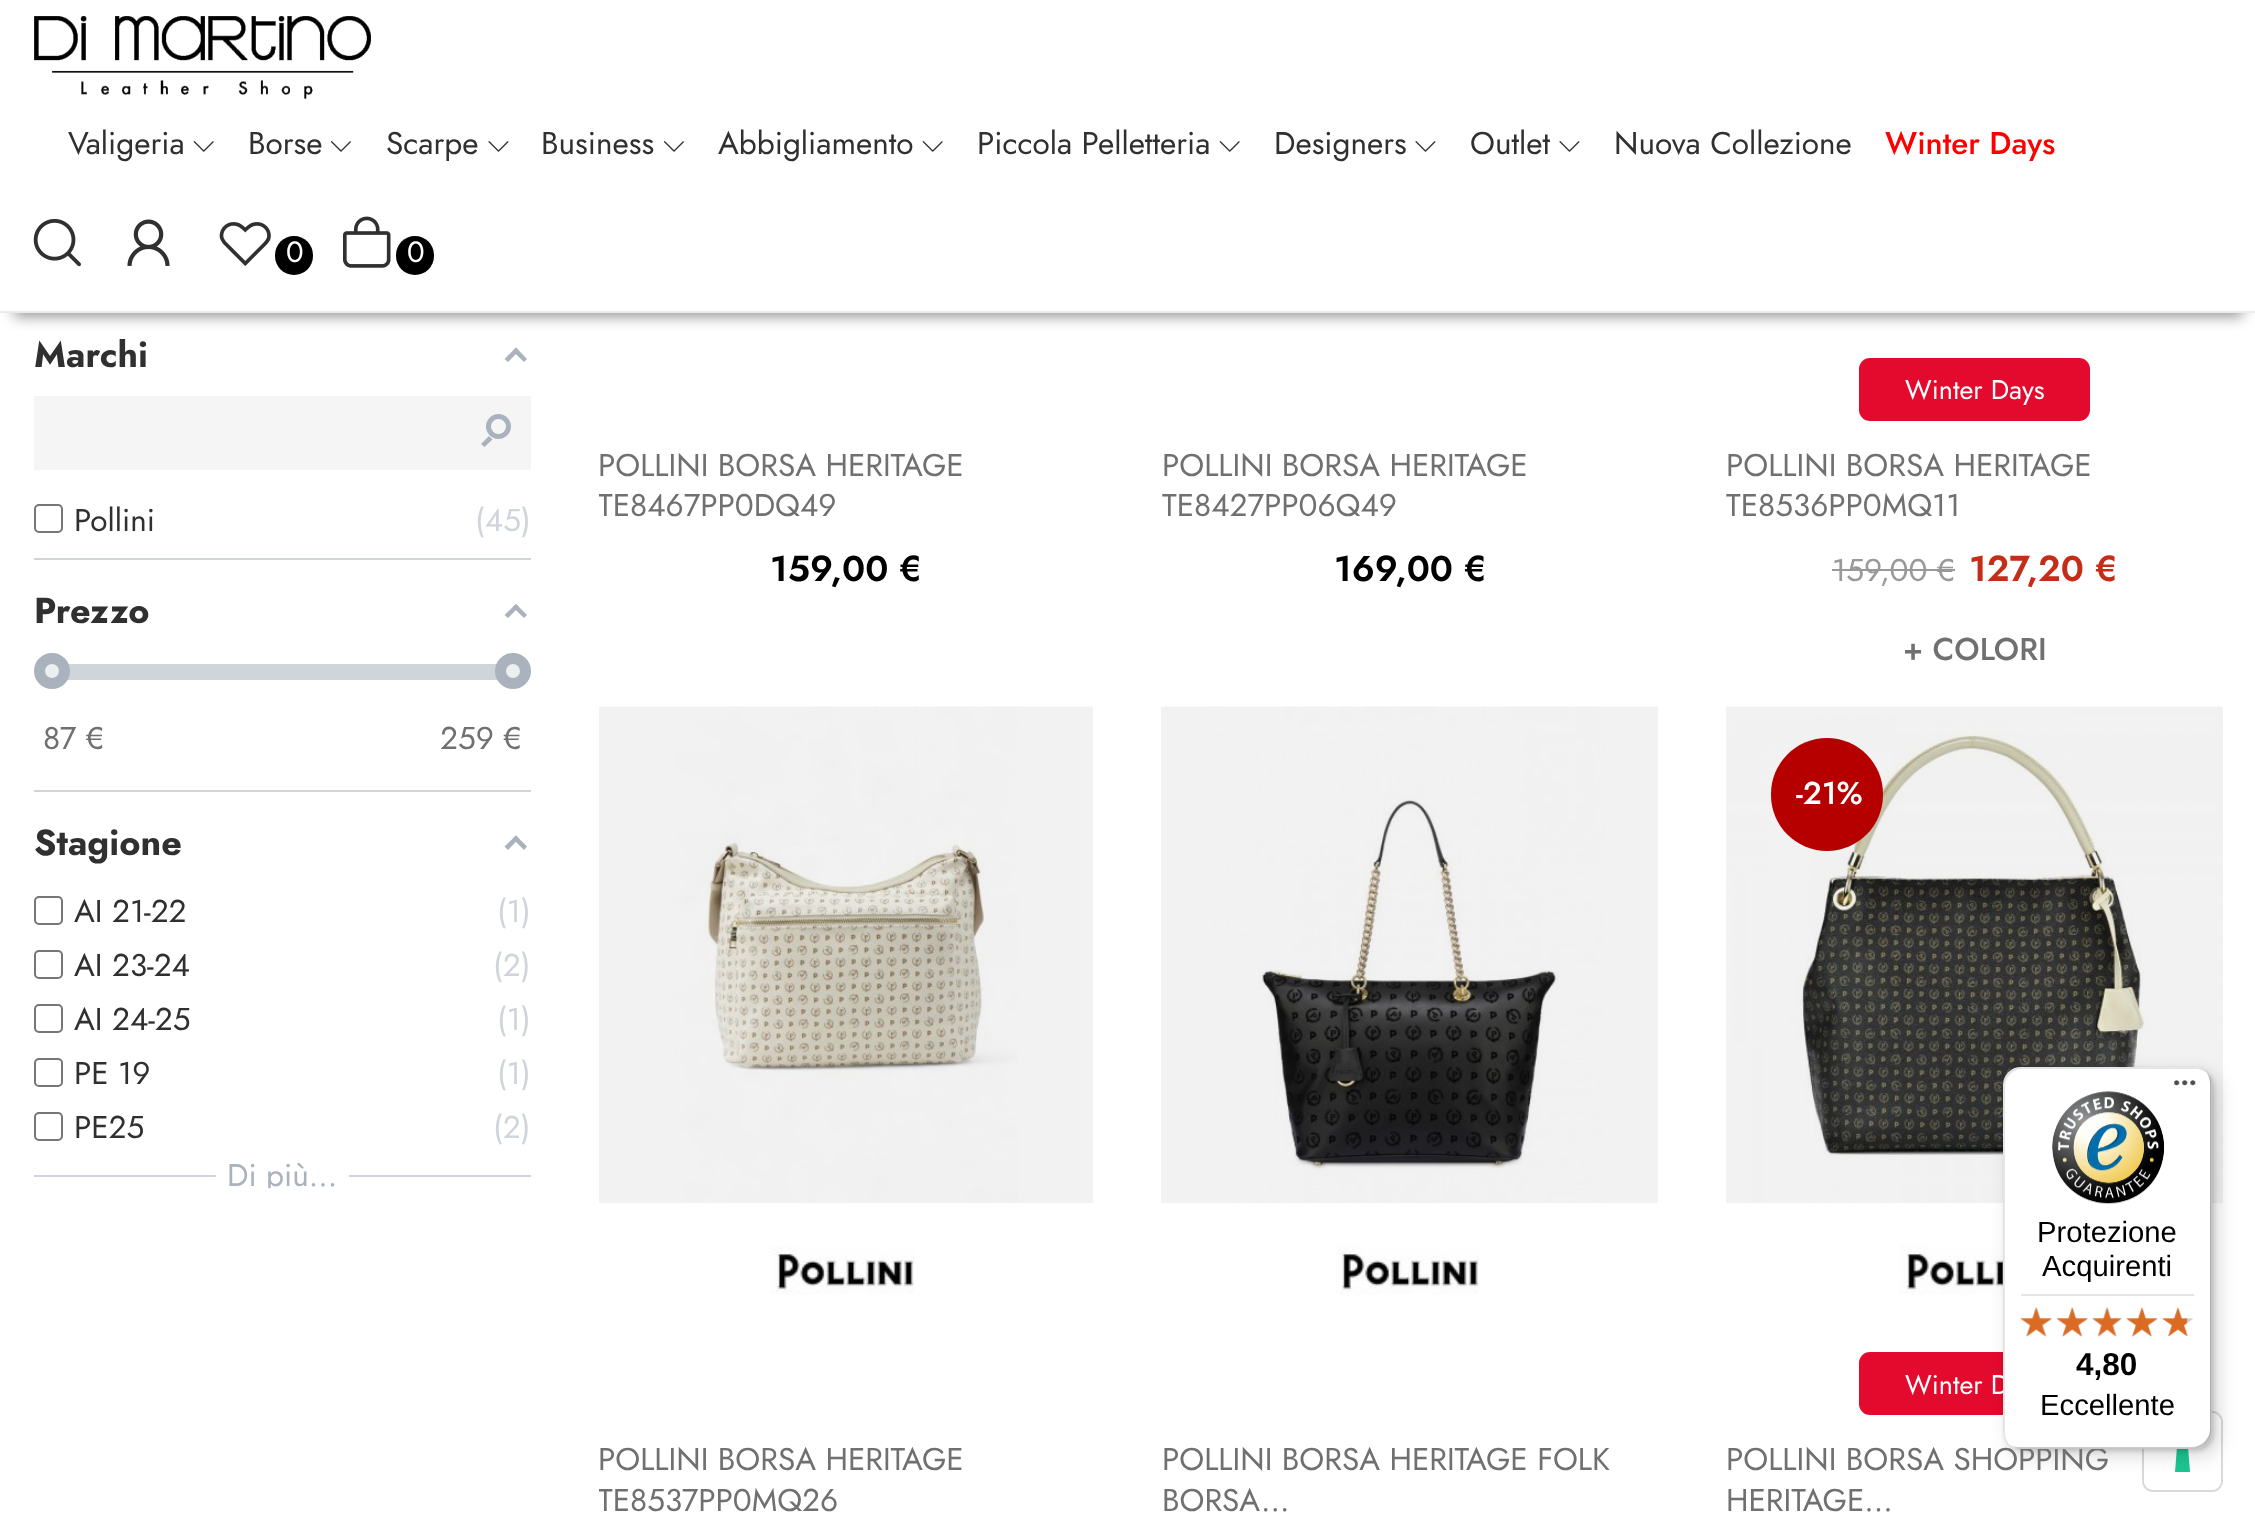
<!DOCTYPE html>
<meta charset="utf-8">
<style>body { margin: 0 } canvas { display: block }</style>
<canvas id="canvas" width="2255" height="1524"></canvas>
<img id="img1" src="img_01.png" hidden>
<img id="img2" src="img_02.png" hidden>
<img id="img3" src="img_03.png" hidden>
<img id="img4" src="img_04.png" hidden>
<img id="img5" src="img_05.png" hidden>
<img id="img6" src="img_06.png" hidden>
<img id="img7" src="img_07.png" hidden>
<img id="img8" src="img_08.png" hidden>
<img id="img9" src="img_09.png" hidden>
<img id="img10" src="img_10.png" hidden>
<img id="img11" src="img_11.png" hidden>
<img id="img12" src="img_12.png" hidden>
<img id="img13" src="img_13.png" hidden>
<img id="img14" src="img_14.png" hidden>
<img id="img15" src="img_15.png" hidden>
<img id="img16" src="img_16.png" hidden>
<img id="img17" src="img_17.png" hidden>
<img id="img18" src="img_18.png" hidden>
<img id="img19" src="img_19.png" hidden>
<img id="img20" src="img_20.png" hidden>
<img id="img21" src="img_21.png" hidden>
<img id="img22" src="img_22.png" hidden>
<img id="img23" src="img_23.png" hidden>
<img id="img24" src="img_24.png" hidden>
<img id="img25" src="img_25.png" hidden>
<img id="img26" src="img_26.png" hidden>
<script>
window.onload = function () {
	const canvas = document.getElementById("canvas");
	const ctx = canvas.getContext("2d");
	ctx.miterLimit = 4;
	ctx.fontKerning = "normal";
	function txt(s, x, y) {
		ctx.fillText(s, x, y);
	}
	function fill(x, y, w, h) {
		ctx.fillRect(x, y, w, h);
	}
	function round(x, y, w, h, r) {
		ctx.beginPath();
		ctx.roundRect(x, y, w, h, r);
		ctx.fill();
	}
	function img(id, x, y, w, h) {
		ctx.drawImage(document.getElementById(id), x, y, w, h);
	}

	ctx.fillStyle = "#FFFFFF";
	fill(0, 0, 2255, 1524);
	ctx.fillStyle = "rgba(0, 0, 0, 0.4)";
	ctx.filter = "blur(7px)";
	ctx.beginPath();
	ctx.rect(14, 32, 2229, 285);
	ctx.fill();
	ctx.filter = "none";
	ctx.fillStyle = "#FFFFFF";
	fill(0, 18, 2255, 293);
	ctx.fillStyle = "#EBEBEB";
	fill(0, 311, 2255, 2);
	img("img1", 34, 16, 337, 83);
	img("img2", 193, 141, 21, 11);
	img("img3", 330, 141, 21, 11);
	img("img4", 488, 141, 21, 11);
	img("img3", 663, 141, 21, 11);
	img("img2", 922, 141, 21, 11);
	img("img2", 1219, 141, 21, 11);
	img("img4", 1415, 141, 21, 11);
	img("img4", 1559, 141, 21, 11);
	img("img5", 33, 218, 48, 49);
	img("img6", 127, 219, 43, 47);
	img("img7", 219, 222, 52, 44);
	ctx.fillStyle = "#000000";
	round(275, 236, 38, 39, 19);
	img("img8", 343, 216, 48, 52);
	round(396, 236, 38, 39, 19);
	ctx.fillStyle = "#D0D5DB";
	fill(34, 558, 497, 2);
	ctx.fillStyle = "#AAB2BD";
	ctx.beginPath();
	ctx.moveTo(516, 347.5);
	ctx.lineTo(527, 359);
	ctx.lineTo(524, 362);
	ctx.lineTo(512.5, 351);
	ctx.closePath();
	ctx.fill();
	ctx.beginPath();
	ctx.moveTo(516, 347.5);
	ctx.lineTo(519, 351);
	ctx.lineTo(508, 362);
	ctx.lineTo(504.5, 359);
	ctx.closePath();
	ctx.fill();
	ctx.fillStyle = "#F5F5F5";
	fill(34, 396, 497, 74);
	ctx.beginPath();
	ctx.arc(498.5, 426.5, 10, 0, Math.PI * 2);
	ctx.strokeStyle = "#AAB2BD";
	ctx.lineWidth = 5;
	ctx.stroke();
	ctx.fillStyle = "#AAB2BD";
	ctx.beginPath();
	ctx.moveTo(489, 436);
	ctx.lineTo(492.5, 439.5);
	ctx.lineTo(484.5, 447);
	ctx.lineTo(481, 444);
	ctx.closePath();
	ctx.fill();
	ctx.beginPath();
	ctx.roundRect(35, 505, 27, 27, 4);
	ctx.strokeStyle = "#767676";
	ctx.lineWidth = 2;
	ctx.stroke();
	ctx.fillStyle = "#D0D5DB";
	fill(34, 790, 497, 2);
	ctx.fillStyle = "#AAB2BD";
	ctx.beginPath();
	ctx.moveTo(516, 604);
	ctx.lineTo(527, 615);
	ctx.lineTo(524, 618);
	ctx.lineTo(512.5, 607);
	ctx.closePath();
	ctx.fill();
	ctx.beginPath();
	ctx.moveTo(516, 604);
	ctx.lineTo(519, 607);
	ctx.lineTo(508, 618);
	ctx.lineTo(504.5, 615);
	ctx.closePath();
	ctx.fill();
	ctx.fillStyle = "#D0D5DB";
	fill(67, 664, 431, 16);
	ctx.fillStyle = "#ECEFF0";
	ctx.beginPath();
	ctx.arc(52, 671, 12.5, 0, Math.PI * 2);
	ctx.fill();
	ctx.strokeStyle = "#AAB2BD";
	ctx.lineWidth = 11;
	ctx.stroke();
	ctx.beginPath();
	ctx.arc(513, 671, 12.5, 0, Math.PI * 2);
	ctx.fill();
	ctx.stroke();
	ctx.fillStyle = "#D0D5DB";
	fill(34, 1175, 497, 2);
	ctx.fillStyle = "#AAB2BD";
	ctx.beginPath();
	ctx.moveTo(516, 835.5);
	ctx.lineTo(527, 846.5);
	ctx.lineTo(524, 850);
	ctx.lineTo(512.5, 838.5);
	ctx.closePath();
	ctx.fill();
	ctx.beginPath();
	ctx.moveTo(516, 835.5);
	ctx.lineTo(519, 838.5);
	ctx.lineTo(508, 850);
	ctx.lineTo(504.5, 846.5);
	ctx.closePath();
	ctx.fill();
	ctx.beginPath();
	ctx.roundRect(35, 897, 27, 27, 4);
	ctx.strokeStyle = "#767676";
	ctx.lineWidth = 2;
	ctx.stroke();
	ctx.beginPath();
	ctx.roundRect(35, 951, 27, 27, 4);
	ctx.stroke();
	ctx.beginPath();
	ctx.roundRect(35, 1005, 27, 27, 4);
	ctx.stroke();
	ctx.beginPath();
	ctx.roundRect(35, 1059, 27, 27, 4);
	ctx.stroke();
	ctx.beginPath();
	ctx.roundRect(35, 1113, 27, 27, 4);
	ctx.stroke();
	ctx.fillStyle = "#FFFFFF";
	fill(216, 1175, 133, 2);
	ctx.fillStyle = "#E40A2D";
	round(1859, 358, 231, 63, 11);
	ctx.fillStyle = "#999999";
	fill(1832, 569, 123, 2);
	img("img9", 599, 706, 494, 497);
	img("img10", 770, 1245, 145, 50);
	img("img11", 1161, 706, 497, 497);
	img("img12", 1336, 1245, 143, 50);
	img("img13", 1726, 706, 497, 497);
	ctx.fillStyle = "#B60000";
	round(1771, 738, 112, 113, 56);
	img("img14", 1899, 1243, 104, 52);
	ctx.fillStyle = "#E40A2D";
	round(1859, 1352, 231, 63, 11);
	ctx.beginPath();
	ctx.roundRect(2143, 1412, 79, 79, 10);
	ctx.strokeStyle = "#D9D9D9";
	ctx.stroke();
	ctx.fillStyle = "#FFFFFF";
	round(2144, 1413, 77, 77, 9);
	ctx.fillStyle = "#1CC691";
	ctx.beginPath();
	ctx.moveTo(2182, 1431);
	ctx.bezierCurveTo(2191, 1431, 2195, 1441, 2188, 1447);
	ctx.lineTo(2190, 1472);
	ctx.lineTo(2175, 1472);
	ctx.lineTo(2177, 1447);
	ctx.bezierCurveTo(2170, 1441, 2174, 1431, 2182, 1431);
	ctx.closePath();
	ctx.fill("evenodd");
	ctx.fillStyle = "rgba(0, 0, 0, 0.15)";
	ctx.filter = "blur(9px)";
	ctx.beginPath();
	ctx.roundRect(2009, 1073, 210, 383, 18);
	ctx.fill();
	ctx.filter = "none";
	ctx.filter = "blur(2px)";
	ctx.beginPath();
	ctx.roundRect(2005, 1069, 209, 382, 18);
	ctx.fill();
	ctx.filter = "none";
	ctx.font = "31.5px Jost";
	ctx.fillStyle = "#313030";
	txt("Valigeria", 68, 154);
	txt("Borse", 248, 154);
	txt("Scarpe", 386, 154);
	txt("Business", 541, 154);
	txt("Abbigliamento", 718, 154);
	txt("Piccola Pelletteria", 977, 154);
	txt("Designers", 1274, 154);
	txt("Outlet", 1470, 154);
	txt("Nuova Collezione", 1614, 154);
	ctx.font = "500 31.5px Jost";
	ctx.fillStyle = "#FF0000";
	txt("Winter Days", 1885, 154);
	ctx.font = "29.25px Jost";
	ctx.fillStyle = "#FFFFFF";
	txt("0", 286, 262);
	txt("0", 407, 262);
	ctx.font = "bold 36px Jost";
	ctx.fillStyle = "#313030";
	txt("Marchi", 34, 367);
	ctx.font = "31.5px Jost";
	txt("Pollini", 74, 531);
	ctx.fillStyle = "#D0D5DB";
	txt("(45)", 475, 531);
	ctx.font = "bold 36px Jost";
	ctx.fillStyle = "#313030";
	txt("Prezzo", 34, 623);
	ctx.font = "31.5px Jost";
	ctx.fillStyle = "#707070";
	txt("87 €", 43, 749);
	txt("259 €", 440, 749);
	ctx.font = "bold 36px Jost";
	ctx.fillStyle = "#313030";
	txt("Stagione", 34, 855);
	ctx.font = "31.5px Jost";
	txt("AI 21-22", 74, 922);
	ctx.fillStyle = "#D0D5DB";
	txt("(1)", 497, 922);
	ctx.fillStyle = "#313030";
	txt("AI 23-24", 74, 976);
	ctx.fillStyle = "#D0D5DB";
	txt("(2)", 493, 976);
	ctx.fillStyle = "#313030";
	txt("AI 24-25", 74, 1030);
	ctx.fillStyle = "#D0D5DB";
	txt("(1)", 497, 1030);
	ctx.fillStyle = "#313030";
	txt("PE 19", 74, 1084);
	ctx.fillStyle = "#D0D5DB";
	txt("(1)", 497, 1084);
	ctx.fillStyle = "#313030";
	txt("PE25", 74, 1138);
	ctx.fillStyle = "#D0D5DB";
	txt("(2)", 493, 1138);
	ctx.save();
	ctx.beginPath();
	ctx.rect(0, 248, 565, 940);
	ctx.clip();
	ctx.fillStyle = "#AAB2BD";
	txt("Di più...", 227, 1186);
	ctx.restore();
	ctx.fillStyle = "#707070";
	txt("POLLINI BORSA HERITAGE", 598, 476);
	ctx.save();
	ctx.beginPath();
	ctx.rect(599, 443, 495, 81);
	ctx.clip();
	txt("TE8467PP0DQ49", 598, 516);
	ctx.restore();
	ctx.font = "600 36px Jost";
	ctx.fillStyle = "#000000";
	txt("159,00 €", 770, 581);
	ctx.font = "31.5px Jost";
	ctx.fillStyle = "#707070";
	txt("POLLINI BORSA HERITAGE", 1162, 476);
	txt("TE8427PP06Q49", 1162, 516);
	ctx.font = "600 36px Jost";
	ctx.fillStyle = "#000000";
	txt("169,00 €", 1334, 581);
	ctx.font = "27px Jost";
	ctx.fillStyle = "#FFFFFF";
	txt("Winter Days", 1905, 399);
	ctx.font = "31.5px Jost";
	ctx.fillStyle = "#707070";
	txt("POLLINI BORSA HERITAGE", 1726, 476);
	txt("TE8536PP0MQ11", 1726, 516);
	ctx.fillStyle = "#999999";
	txt("159,00 €", 1832, 581);
	ctx.font = "600 36px Jost";
	ctx.fillStyle = "#C42E19";
	txt("127,20 €", 1969, 581);
	ctx.font = "500 31.5px Jost";
	ctx.fillStyle = "#707070";
	txt("+ COLORI", 1903, 660);
	ctx.font = "31.5px Jost";
	txt("POLLINI BORSA HERITAGE", 598, 1470);
	ctx.save();
	ctx.beginPath();
	ctx.rect(599, 1438, 495, 81);
	ctx.clip();
	txt("TE8537PP0MQ26", 598, 1511);
	ctx.restore();
	txt("POLLINI BORSA HERITAGE FOLK", 1162, 1470);
	txt("BORSA...", 1162, 1511);
	ctx.font = "500 31.5px Jost";
	ctx.fillStyle = "#FFFFFF";
	txt("-21%", 1796, 804);
	ctx.font = "27px Jost";
	txt("Winter D", 1905, 1394);
	ctx.font = "31.5px Jost";
	ctx.fillStyle = "#707070";
	txt("POLLINI BORSA SHOPPING", 1726, 1470);
	txt("HERITAGE...", 1726, 1511);
	ctx.fillStyle = "#FFFFFF";
	round(2003, 1067, 209, 382, 18);
	ctx.fillStyle = "rgba(0, 0, 0, 0.1)";
	ctx.beginPath();
	ctx.moveTo(2023, 1069);
	ctx.lineTo(2196, 1069);
	ctx.bezierCurveTo(2200, 1069, 2204, 1071, 2208, 1073);
	ctx.bezierCurveTo(2204, 1069, 2199, 1067, 2194, 1067);
	ctx.lineTo(2021, 1067);
	ctx.bezierCurveTo(2011, 1067, 2003, 1075, 2003, 1085);
	ctx.lineTo(2003, 1431);
	ctx.bezierCurveTo(2003, 1436, 2005, 1441, 2009, 1445);
	ctx.bezierCurveTo(2007, 1441, 2005, 1437, 2005, 1433);
	ctx.lineTo(2005, 1087);
	ctx.bezierCurveTo(2005, 1077, 2013, 1069, 2023, 1069);
	ctx.closePath();
	ctx.fill();
	ctx.fillStyle = "rgba(0, 0, 0, 0.2)";
	ctx.beginPath();
	ctx.moveTo(2010, 1445);
	ctx.bezierCurveTo(2013, 1447, 2017, 1449, 2021, 1449);
	ctx.lineTo(2194, 1449);
	ctx.bezierCurveTo(2204, 1449, 2212, 1441, 2212, 1431);
	ctx.lineTo(2212, 1085);
	ctx.bezierCurveTo(2212, 1080, 2210, 1076, 2207, 1073);
	ctx.bezierCurveTo(2209, 1076, 2210, 1079, 2210, 1082);
	ctx.lineTo(2210, 1429);
	ctx.bezierCurveTo(2210, 1439, 2201, 1447, 2192, 1447);
	ctx.lineTo(2018, 1447);
	ctx.bezierCurveTo(2015, 1447, 2012, 1446, 2010, 1445);
	ctx.closePath();
	ctx.fill();
	ctx.fillStyle = "rgba(50, 50, 50, 0.2)";
	ctx.beginPath();
	ctx.moveTo(2012, 1447);
	ctx.bezierCurveTo(2015, 1448, 2018, 1449, 2021, 1449);
	ctx.lineTo(2194, 1449);
	ctx.bezierCurveTo(2204, 1449, 2212, 1441, 2212, 1431);
	ctx.lineTo(2212, 1085);
	ctx.bezierCurveTo(2212, 1080, 2210, 1075, 2206, 1071);
	ctx.bezierCurveTo(2208, 1075, 2210, 1079, 2210, 1083);
	ctx.lineTo(2210, 1430);
	ctx.bezierCurveTo(2210, 1440, 2202, 1448, 2192, 1448);
	ctx.lineTo(2019, 1448);
	ctx.bezierCurveTo(2017, 1448, 2014, 1448, 2012, 1447);
	ctx.closePath();
	ctx.fill();
	ctx.fillStyle = "rgba(255, 255, 255, 0.3)";
	ctx.beginPath();
	ctx.moveTo(2012, 1447);
	ctx.bezierCurveTo(2015, 1448, 2018, 1449, 2021, 1449);
	ctx.lineTo(2194, 1449);
	ctx.bezierCurveTo(2204, 1449, 2212, 1441, 2212, 1431);
	ctx.lineTo(2212, 1085);
	ctx.bezierCurveTo(2212, 1082, 2211, 1079, 2210, 1076);
	ctx.bezierCurveTo(2211, 1078, 2211, 1081, 2211, 1083);
	ctx.lineTo(2211, 1430);
	ctx.bezierCurveTo(2211, 1440, 2203, 1448, 2193, 1448);
	ctx.lineTo(2019, 1448);
	ctx.bezierCurveTo(2017, 1448, 2014, 1448, 2012, 1447);
	ctx.closePath();
	ctx.fill();
	img("img15", 2173, 1080, 23, 6);
	img("img16", 2052, 1091, 113, 113);
	ctx.font = "29.25px Liberation Sans";
	ctx.fillStyle = "#000000";
	txt("Protezione", 2037, 1242);
	txt("Acquirenti", 2042, 1276);
	ctx.fillStyle = "#E5E5E5";
	fill(2021, 1294, 173, 2);
	img("img17", 2020, 1307, 32, 30);
	img("img18", 2057, 1307, 31, 30);
	img("img19", 2092, 1307, 30, 30);
	img("img20", 2127, 1307, 30, 30);
	img("img21", 2162, 1307, 32, 30);
	img("img22", 2020, 1307, 32, 30);
	img("img23", 2056, 1307, 32, 30);
	img("img24", 2092, 1307, 30, 30);
	img("img25", 2126, 1307, 32, 30);
	img("img26", 2162, 1307, 26, 29);
	ctx.font = "bold 31.5px Liberation Sans";
	ctx.fillStyle = "#000000";
	txt("4,80", 2076, 1375);
	ctx.font = "29.25px Liberation Sans";
	txt("Eccellente", 2040, 1415);
};
</script>
